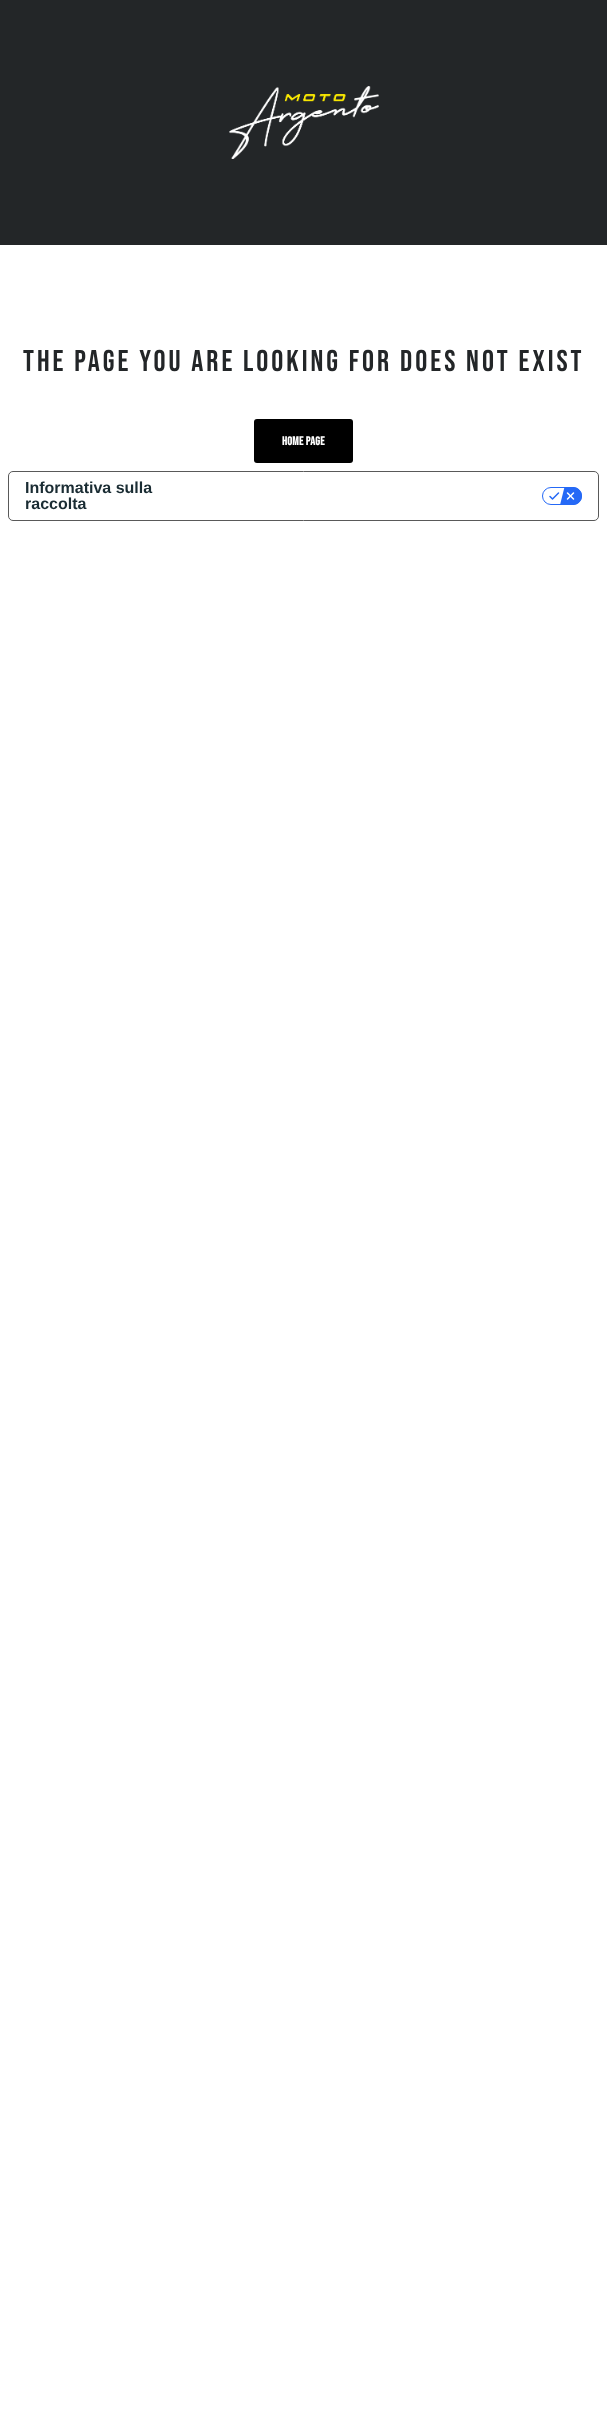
<!DOCTYPE html>
<meta charset="utf-8">
<style>body { margin: 0 } canvas { display: block }</style>
<canvas id="canvas" width="607" height="2431"></canvas>
<img id="img1" src="img_01.png" hidden>
<img id="img2" src="img_02.png" hidden>
<script>
window.onload = function () {
	const canvas = document.getElementById("canvas");
	const ctx = canvas.getContext("2d");
	ctx.miterLimit = 4;
	ctx.fontKerning = "normal";
	function txt(s, x, y) {
		ctx.fillText(s, x, y);
	}
	function fill(x, y, w, h) {
		ctx.fillRect(x, y, w, h);
	}
	function round(x, y, w, h, r) {
		ctx.beginPath();
		ctx.roundRect(x, y, w, h, r);
		ctx.fill();
	}
	function img(id, x, y, w, h) {
		ctx.drawImage(document.getElementById(id), x, y, w, h);
	}

	ctx.fillStyle = "#FFFFFF";
	fill(0, 0, 607, 2431);
	ctx.fillStyle = "#232628";
	fill(0, 0, 607, 245);
	img("img1", 229, 86, 150, 73);
	ctx.fillStyle = "#000000";
	round(254, 419, 99, 44, 3);
	ctx.beginPath();
	ctx.roundRect(8.5, 471.5, 590, 49, 4.5);
	ctx.strokeStyle = "#595959";
	ctx.stroke();
	img("img2", 542, 487, 40, 18);
	ctx.letterSpacing = "3px";
	ctx.font = "30px Bebas Neue";
	ctx.fillStyle = "#232628";
	txt("THE PAGE YOU ARE LOOKING FOR DOES NOT EXIST", 23, 371);
	ctx.letterSpacing = "0.25px";
	ctx.font = "bold 12px Bebas Neue";
	ctx.fillStyle = "#FFFFFF";
	txt("HOME PAGE", 282, 445);
	ctx.letterSpacing = "0px";
	ctx.font = "bold 16px Liberation Sans";
	ctx.fillStyle = "#1A2C33";
	txt("Informativa sulla", 25, 493);
	txt("raccolta", 25, 509);
};
</script>
